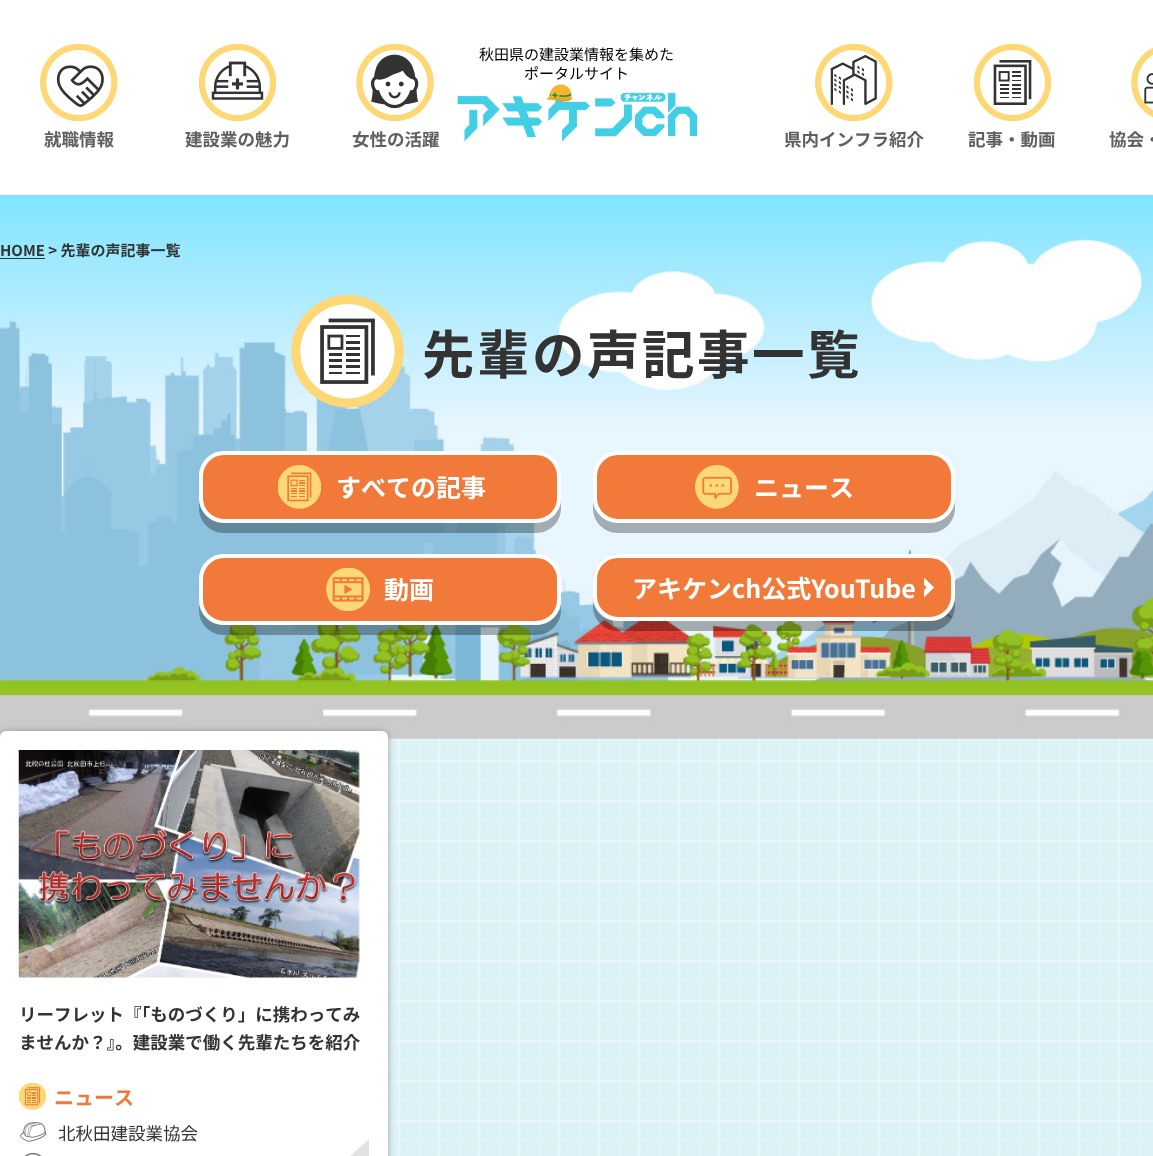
<!DOCTYPE html>
<meta charset="utf-8">
<style>body { margin: 0 } canvas { display: block }</style>
<canvas id="canvas" width="1153" height="1156"></canvas>
<img id="img1" src="img_01.png" hidden>
<img id="img2" src="img_02.png" hidden>
<img id="img3" src="img_03.png" hidden>
<img id="img4" src="img_04.png" hidden>
<img id="img5" src="img_05.png" hidden>
<img id="img6" src="img_06.png" hidden>
<img id="img7" src="img_07.png" hidden>
<img id="img8" src="img_08.png" hidden>
<img id="img9" src="img_09.png" hidden>
<img id="img10" src="img_10.png" hidden>
<img id="img11" src="img_11.png" hidden>
<img id="img12" src="img_12.png" hidden>
<img id="img13" src="img_13.png" hidden>
<img id="img14" src="img_14.png" hidden>
<img id="img15" src="img_15.png" hidden>
<img id="img16" src="img_16.png" hidden>
<img id="img17" src="img_17.png" hidden>
<img id="img18" src="img_18.png" hidden>
<script>
window.onload = function () {
	const canvas = document.getElementById("canvas");
	const ctx = canvas.getContext("2d");
	ctx.miterLimit = 4;
	ctx.fontKerning = "normal";
	function txt(s, x, y) {
		ctx.fillText(s, x, y);
	}
	function fill(x, y, w, h) {
		ctx.fillRect(x, y, w, h);
	}
	function round(x, y, w, h, r) {
		ctx.beginPath();
		ctx.roundRect(x, y, w, h, r);
		ctx.fill();
	}
	function img(id, x, y, w, h) {
		ctx.drawImage(document.getElementById(id), x, y, w, h);
	}

	ctx.fillStyle = "#FFFFFF";
	fill(0, 0, 1153, 1156);
	img("img1", 388, 738, 765, 418);
	img("img2", 457, 84, 241, 58);
	img("img3", 40, 44, 78, 77);
	img("img4", 199, 44, 77, 77);
	img("img5", 356, 44, 78, 77);
	img("img6", 815, 44, 78, 77);
	img("img7", 974, 44, 77, 77);
	img("img8", 1131, 47, 22, 71);
	img("img9", 0, 195, 1153, 544);
	ctx.fillStyle = "#333333";
	fill(0, 258, 45, 1);
	img("img10", 291, 295, 113, 113);
	ctx.fillStyle = "rgba(0, 0, 0, 0.3)";
	ctx.beginPath();
	ctx.moveTo(199, 501);
	ctx.lineTo(199, 508);
	ctx.bezierCurveTo(199, 522, 210, 533, 224, 533);
	ctx.lineTo(536, 533);
	ctx.bezierCurveTo(550, 533, 561, 522, 561, 508);
	ctx.lineTo(561, 501);
	ctx.bezierCurveTo(559, 513, 549, 522, 536, 522);
	ctx.lineTo(224, 522);
	ctx.bezierCurveTo(211, 522, 201, 513, 199, 501);
	ctx.closePath();
	ctx.fill();
	ctx.fillStyle = "#F1793A";
	ctx.beginPath();
	ctx.roundRect(201, 453, 358, 68, 23);
	ctx.fill();
	ctx.strokeStyle = "#FFFFFF";
	ctx.lineWidth = 4;
	ctx.stroke();
	img("img11", 278, 465, 43, 44);
	ctx.fillStyle = "#A2ACB3";
	ctx.beginPath();
	ctx.moveTo(593, 502);
	ctx.lineTo(593, 508);
	ctx.bezierCurveTo(593, 522, 604, 533, 618, 533);
	ctx.lineTo(930, 533);
	ctx.bezierCurveTo(944, 533, 955, 522, 955, 508);
	ctx.lineTo(955, 498);
	ctx.bezierCurveTo(955, 511, 944, 522, 930, 522);
	ctx.lineTo(618, 522);
	ctx.bezierCurveTo(605, 522, 595, 514, 593, 502);
	ctx.closePath();
	ctx.fill();
	ctx.fillStyle = "#F1793A";
	ctx.beginPath();
	ctx.roundRect(595, 453, 358, 68, 23);
	ctx.fill();
	ctx.stroke();
	img("img12", 695, 465, 44, 44);
	ctx.fillStyle = "rgba(0, 0, 0, 0.3)";
	ctx.beginPath();
	ctx.moveTo(199, 604);
	ctx.lineTo(199, 610);
	ctx.bezierCurveTo(199, 624, 210, 635, 224, 635);
	ctx.lineTo(536, 635);
	ctx.bezierCurveTo(550, 635, 561, 624, 561, 610);
	ctx.lineTo(561, 604);
	ctx.bezierCurveTo(559, 616, 549, 625, 536, 625);
	ctx.lineTo(224, 625);
	ctx.bezierCurveTo(211, 625, 201, 616, 199, 604);
	ctx.closePath();
	ctx.fill();
	ctx.fillStyle = "#F1793A";
	ctx.beginPath();
	ctx.roundRect(201, 556, 358, 67, 23);
	ctx.fill();
	ctx.stroke();
	img("img13", 326, 568, 44, 43);
	ctx.fillStyle = "rgba(0, 0, 0, 0.3)";
	ctx.beginPath();
	ctx.moveTo(593, 601);
	ctx.lineTo(593, 606);
	ctx.bezierCurveTo(593, 620, 604, 631, 618, 631);
	ctx.lineTo(930, 631);
	ctx.bezierCurveTo(944, 631, 955, 620, 955, 606);
	ctx.lineTo(955, 596);
	ctx.bezierCurveTo(955, 610, 944, 621, 930, 621);
	ctx.lineTo(618, 621);
	ctx.bezierCurveTo(605, 621, 595, 613, 593, 601);
	ctx.closePath();
	ctx.fill();
	ctx.fillStyle = "#F1793A";
	round(593, 554, 362, 67, 25);
	img("img14", 924, 578, 10, 20);
	ctx.beginPath();
	ctx.roundRect(595, 556, 358, 63, 23);
	ctx.stroke();
	ctx.fillStyle = "#999999";
	ctx.filter = "blur(3px)";
	ctx.beginPath();
	ctx.roundRect(0, 731, 388, 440, 6);
	ctx.fill();
	ctx.filter = "none";
	ctx.fillStyle = "#FFFFFF";
	round(0, 731, 388, 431, 6);
	img("img15", 18, 750, 343, 228);
	img("img16", 19, 1083, 27, 27);
	img("img17", 20, 1122, 27, 20);
	img("img18", 24, 1152, 18, 4);
	ctx.fillStyle = "#E2E2E2";
	ctx.beginPath();
	ctx.moveTo(325, 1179);
	ctx.lineTo(361, 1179);
	ctx.bezierCurveTo(365, 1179, 369, 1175, 369, 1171);
	ctx.lineTo(369, 1139);
	ctx.closePath();
	ctx.fill();
	ctx.font = "15px Noto Sans JP";
	ctx.fillStyle = "#000000";
	txt("秋田県の建設業情報を集めた", 479, 60);
	txt("ポータルサイト", 524, 79);
	ctx.font = "bold 17.5px Noto Sans JP";
	ctx.fillStyle = "#606060";
	txt("就職情報", 44, 146);
	txt("建設業の魅力", 185, 146);
	txt("女性の活躍", 352, 146);
	txt("県内インフラ紹介", 784, 146);
	txt("記事・動画", 968, 146);
	txt("協会・", 1109, 146);
	ctx.font = "bold 15px Noto Sans JP";
	ctx.fillStyle = "#333333";
	txt("HOME > 先輩の声記事一覧", 0, 256);
	ctx.letterSpacing = "2.5px";
	ctx.font = "bold 52.5px Noto Sans JP";
	txt("先輩の声記事一覧", 422, 374);
	ctx.letterSpacing = "0px";
	ctx.font = "bold 25px Noto Sans JP";
	ctx.fillStyle = "#FFFFFF";
	txt("すべての記事", 336, 497);
	txt("ニュース", 754, 497);
	txt("動画", 384, 599);
	txt("アキケンch公式YouTube", 632, 598);
	ctx.font = "bold 17.5px Noto Sans JP";
	ctx.fillStyle = "#333333";
	txt("リーフレット『「ものづくり」に携わってみ", 19, 1021);
	txt("ませんか？』。建設業で働く先輩たちを紹介", 19, 1049);
	ctx.font = "bold 20px Noto Sans JP";
	ctx.fillStyle = "#F1793A";
	txt("ニュース", 54, 1105);
	ctx.font = "17.5px Noto Sans JP";
	ctx.fillStyle = "#333333";
	txt("北秋田建設業協会", 58, 1140);
};
</script>
